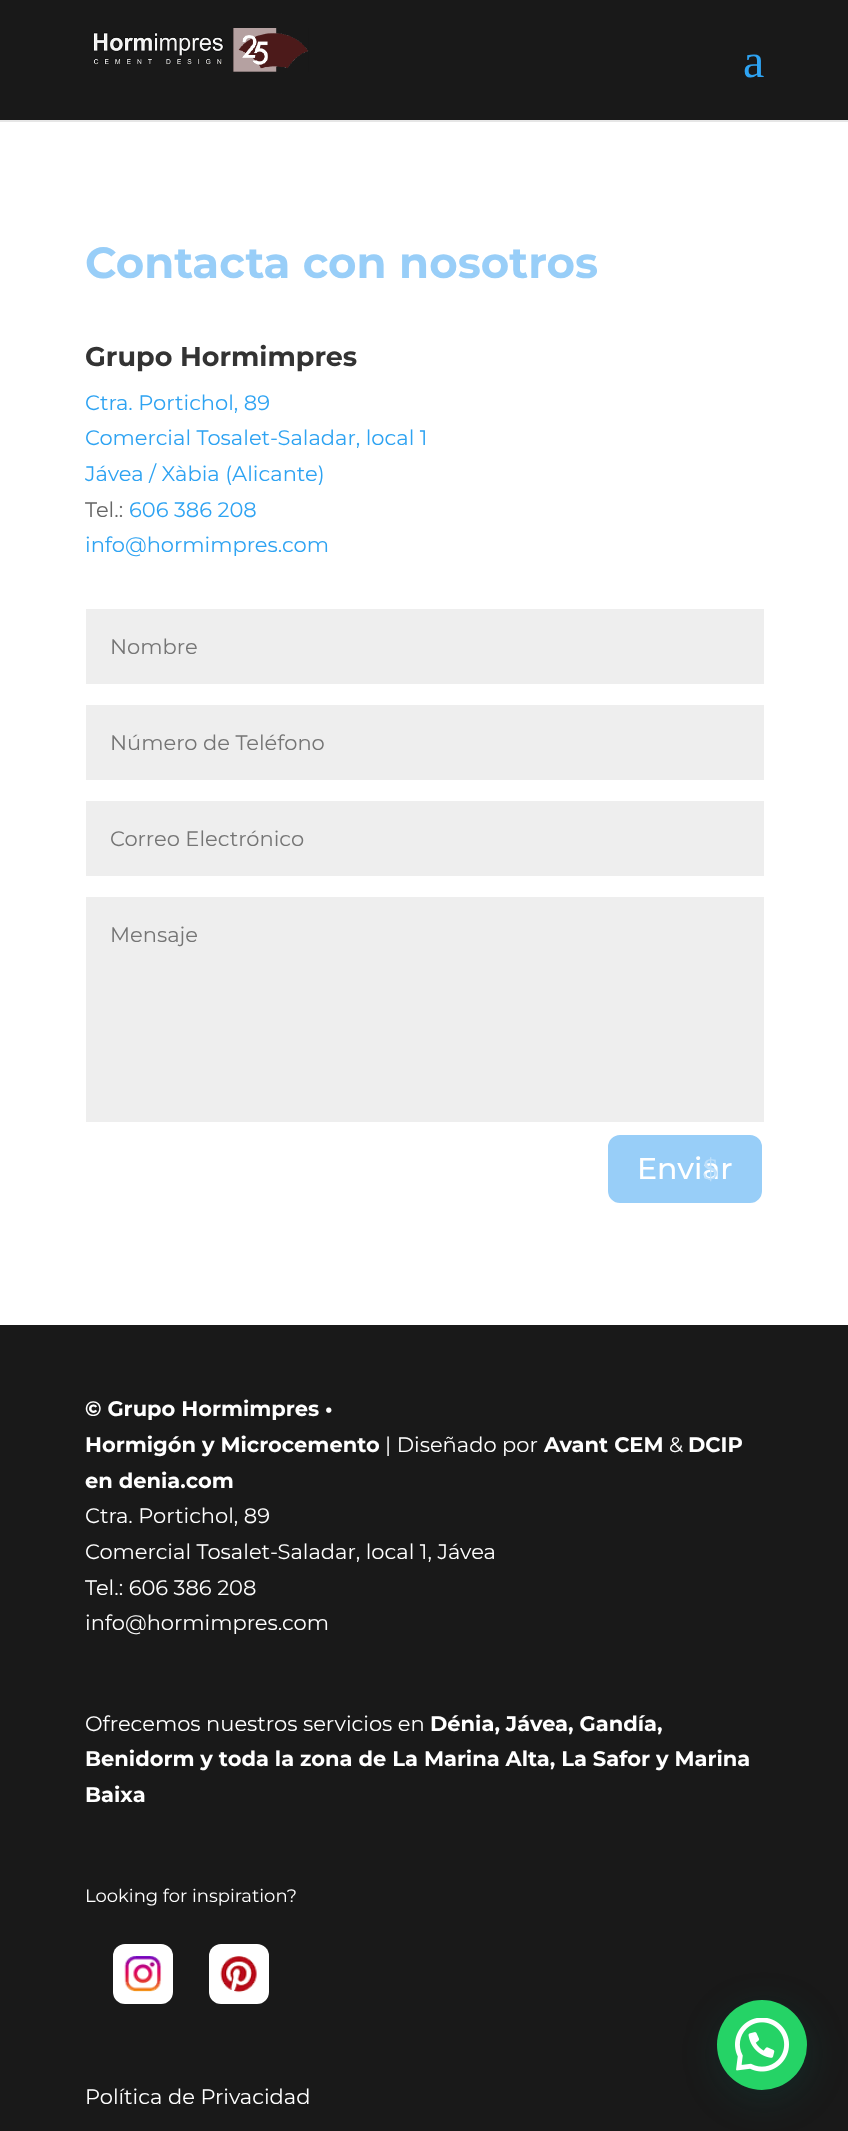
<!DOCTYPE html>
<meta charset="utf-8">
<style>body { margin: 0 } canvas { display: block }</style>
<canvas id="canvas" width="848" height="2131"></canvas>
<img id="img1" src="img_01.png" hidden>
<img id="img2" src="img_02.png" hidden>
<img id="img3" src="img_03.png" hidden>
<img id="img4" src="img_04.png" hidden>
<script>
window.onload = function () {
	const canvas = document.getElementById("canvas");
	const ctx = canvas.getContext("2d");
	ctx.miterLimit = 4;
	ctx.fontKerning = "normal";
	function txt(s, x, y) {
		ctx.fillText(s, x, y);
	}
	function fill(x, y, w, h) {
		ctx.fillRect(x, y, w, h);
	}
	function round(x, y, w, h, r) {
		ctx.beginPath();
		ctx.roundRect(x, y, w, h, r);
		ctx.fill();
	}
	function img(id, x, y, w, h) {
		ctx.drawImage(document.getElementById(id), x, y, w, h);
	}

	ctx.fillStyle = "#FFFFFF";
	fill(0, 0, 848, 2131);
	ctx.fillStyle = "#E6E6E6";
	fill(0, 120, 848, 2);
	ctx.fillStyle = "#191919";
	fill(0, 0, 848, 120);
	img("img1", 94, 28, 215, 44);
	ctx.fillStyle = "#EEEEEE";
	fill(86, 609, 678, 75);
	fill(86, 705, 678, 75);
	fill(86, 801, 678, 75);
	fill(86, 897, 678, 225);
	ctx.fillStyle = "#98CEF8";
	ctx.beginPath();
	ctx.roundRect(607, 1134, 156, 70, 13);
	ctx.fill();
	ctx.strokeStyle = "#FFFFFF";
	ctx.lineWidth = 2;
	ctx.stroke();
	ctx.fillStyle = "#191919";
	fill(0, 1325, 848, 806);
	ctx.fillStyle = "#FFFFFF";
	round(113, 1944, 60, 60, 12);
	round(209, 1944, 60, 60, 12);
	img("img2", 124, 1956, 38, 36);
	img("img3", 220, 1956, 37, 37);
	ctx.fillStyle = "rgba(7, 94, 84, 0.24)";
	ctx.filter = "blur(18px)";
	ctx.beginPath();
	ctx.roundRect(719, 2009, 90, 90, 45);
	ctx.fill();
	ctx.filter = "none";
	ctx.fillStyle = "#25D366";
	ctx.beginPath();
	ctx.arc(762, 2045, 45, 0, Math.PI * 2);
	ctx.fill();
	img("img4", 735, 2018, 54, 54);
	ctx.font = "48px Liberation Serif";
	ctx.fillStyle = "#2EA3F2";
	txt("a", 743, 77);
	ctx.font = "bold 43.5px Montserrat";
	ctx.fillStyle = "#98CEF8";
	txt("Contacta con nosotros", 85, 278);
	ctx.font = "bold 27px Montserrat";
	ctx.fillStyle = "#333333";
	txt("Grupo Hormimpres", 85, 366);
	ctx.font = "21px Montserrat";
	ctx.fillStyle = "#2EA3F2";
	txt("Ctra. Portichol, 89", 85, 410);
	txt("Comercial Tosalet-Saladar, local 1", 85, 445);
	txt("Jávea / Xàbia (Alicante)", 85, 481);
	ctx.fillStyle = "#666666";
	txt("Tel.:", 85, 517);
	ctx.fillStyle = "#2EA3F2";
	txt("606 386 208", 129, 517);
	txt("info@hormimpres.com", 85, 552);
	ctx.fillStyle = "#757575";
	txt("Nombre", 110, 654);
	txt("Número de Teléfono", 110, 750);
	txt("Correo Electrónico", 110, 846);
	txt("Mensaje", 110, 942);
	ctx.font = "500 30px Montserrat";
	ctx.fillStyle = "#FFFFFF";
	txt("Enviar", 637, 1179);
	ctx.font = "30px Liberation Serif";
	ctx.fillStyle = "#BEE0FB";
	txt("$", 703, 1179);
	ctx.font = "bold 21px Montserrat";
	ctx.fillStyle = "#FFFFFF";
	txt("© Grupo Hormimpres •", 85, 1416);
	txt("Hormigón y Microcemento", 85, 1452);
	ctx.font = "21px Montserrat";
	txt("| Diseñado por", 385, 1452);
	ctx.font = "bold 21px Montserrat";
	txt("Avant CEM", 544, 1452);
	ctx.font = "21px Montserrat";
	txt("&", 669, 1452);
	ctx.font = "bold 21px Montserrat";
	txt("DCIP", 688, 1452);
	txt("en denia.com", 85, 1488);
	ctx.font = "21px Montserrat";
	txt("Ctra. Portichol, 89", 85, 1523);
	txt("Comercial Tosalet-Saladar, local 1, Jávea", 85, 1559);
	txt("Tel.: 606 386 208", 85, 1595);
	txt("info@hormimpres.com", 85, 1630);
	txt("Ofrecemos nuestros servicios en", 85, 1731);
	ctx.font = "bold 21px Montserrat";
	txt("Dénia, Jávea, Gandía,", 430, 1731);
	txt("Benidorm y toda la zona de La Marina Alta, La Safor y Marina", 85, 1766);
	txt("Baixa", 85, 1802);
	ctx.font = "18px Montserrat";
	txt("Looking for inspiration?", 85, 1902);
	ctx.font = "21px Montserrat";
	txt("Política de Privacidad", 85, 2104);
};
</script>
